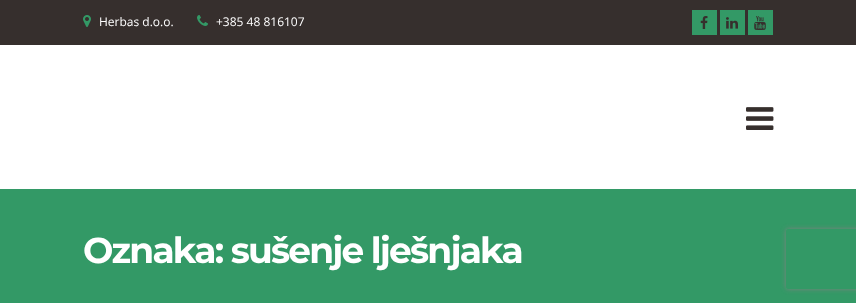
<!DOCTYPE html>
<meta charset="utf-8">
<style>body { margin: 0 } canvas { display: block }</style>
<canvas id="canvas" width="856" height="303"></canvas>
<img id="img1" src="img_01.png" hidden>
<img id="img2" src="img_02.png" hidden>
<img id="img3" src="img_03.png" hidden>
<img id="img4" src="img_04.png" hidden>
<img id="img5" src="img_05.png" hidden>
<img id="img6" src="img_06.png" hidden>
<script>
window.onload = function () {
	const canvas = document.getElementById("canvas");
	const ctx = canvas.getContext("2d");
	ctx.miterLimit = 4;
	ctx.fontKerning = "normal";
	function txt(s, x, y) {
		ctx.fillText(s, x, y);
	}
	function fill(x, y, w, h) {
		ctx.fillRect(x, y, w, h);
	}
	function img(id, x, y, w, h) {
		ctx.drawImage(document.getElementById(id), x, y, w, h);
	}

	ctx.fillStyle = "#FFFFFF";
	fill(0, 0, 856, 303);
	ctx.fillStyle = "#362F2D";
	fill(0, 0, 856, 45);
	img("img1", 83, 15, 8, 12);
	img("img2", 197, 15, 11, 11);
	ctx.fillStyle = "#339966";
	fill(692, 10, 25, 25);
	img("img3", 700, 16, 8, 13);
	fill(720, 10, 25, 25);
	img("img4", 726, 17, 12, 12);
	fill(748, 10, 25, 25);
	img("img5", 754, 16, 12, 14);
	img("img6", 746, 107, 28, 23);
	fill(0, 189, 856, 114);
	ctx.save();
	ctx.beginPath();
	ctx.moveTo(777, 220);
	ctx.lineTo(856, 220);
	ctx.lineTo(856, 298);
	ctx.lineTo(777, 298);
	ctx.closePath();
	ctx.moveTo(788, 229);
	ctx.lineTo(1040, 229);
	ctx.bezierCurveTo(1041, 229, 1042, 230, 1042, 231);
	ctx.lineTo(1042, 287);
	ctx.bezierCurveTo(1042, 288, 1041, 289, 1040, 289);
	ctx.lineTo(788, 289);
	ctx.bezierCurveTo(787, 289, 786, 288, 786, 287);
	ctx.lineTo(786, 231);
	ctx.bezierCurveTo(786, 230, 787, 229, 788, 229);
	ctx.closePath();
	ctx.clip("evenodd");
	ctx.fillStyle = "#808080";
	ctx.filter = "blur(2.5px)";
	ctx.beginPath();
	ctx.roundRect(786, 229, 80, 60, 2);
	ctx.fill();
	ctx.filter = "none";
	ctx.restore();
	ctx.font = "12px Open Sans";
	ctx.fillStyle = "#FFFFFF";
	txt("Herbas d.o.o.", 99, 26);
	txt("+385 48 816107", 216, 26);
	ctx.letterSpacing = "-1.8px";
	ctx.font = "bold 36px Montserrat";
	txt("Oznaka: sušenje lješnjaka", 83, 263);
};
</script>
